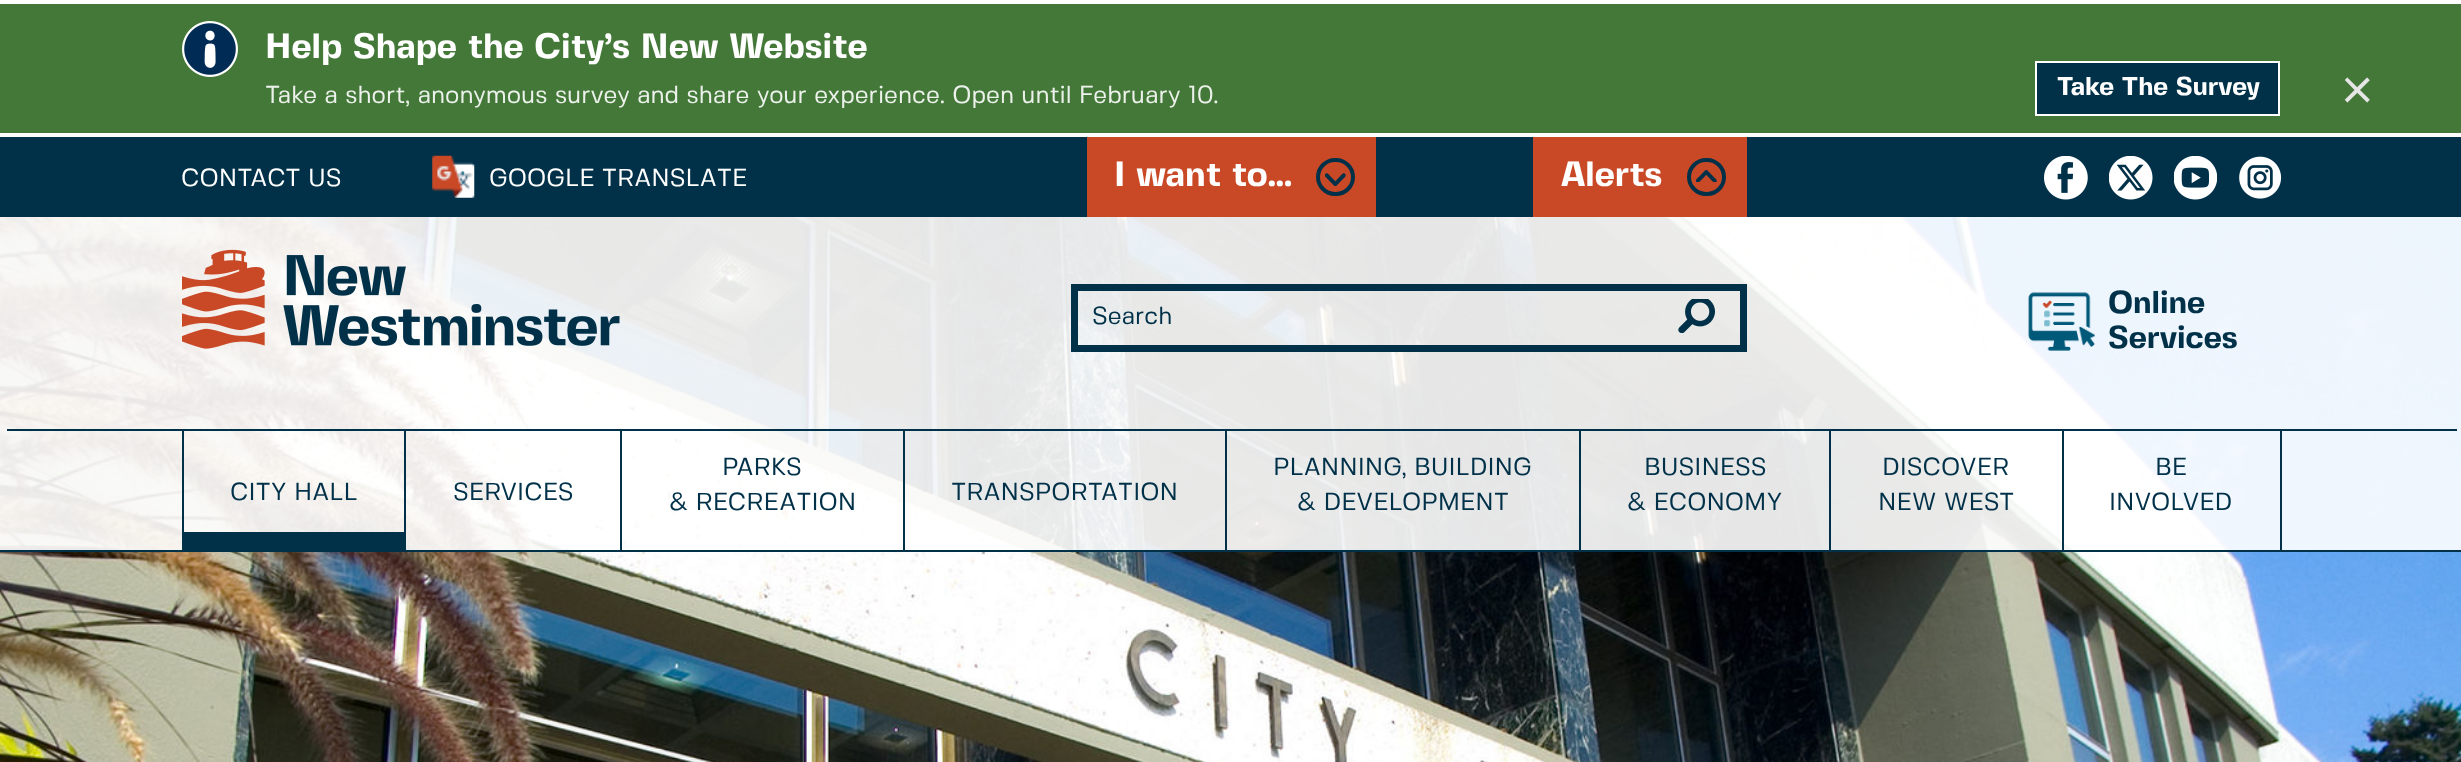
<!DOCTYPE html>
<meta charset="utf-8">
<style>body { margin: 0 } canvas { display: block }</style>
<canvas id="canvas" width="2461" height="762"></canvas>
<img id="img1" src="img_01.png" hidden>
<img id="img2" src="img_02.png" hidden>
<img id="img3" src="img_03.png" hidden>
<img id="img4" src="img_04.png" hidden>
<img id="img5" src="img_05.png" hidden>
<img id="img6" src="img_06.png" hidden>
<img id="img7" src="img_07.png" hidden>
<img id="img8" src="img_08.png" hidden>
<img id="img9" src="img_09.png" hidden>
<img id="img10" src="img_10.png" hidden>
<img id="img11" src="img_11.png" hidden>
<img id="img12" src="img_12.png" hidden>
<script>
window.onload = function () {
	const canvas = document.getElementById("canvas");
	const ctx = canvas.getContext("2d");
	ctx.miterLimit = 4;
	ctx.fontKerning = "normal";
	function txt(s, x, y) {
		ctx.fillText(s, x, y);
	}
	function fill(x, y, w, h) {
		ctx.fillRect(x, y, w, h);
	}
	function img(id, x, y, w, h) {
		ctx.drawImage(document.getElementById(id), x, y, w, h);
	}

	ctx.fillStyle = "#003149";
	fill(0, 0, 2461, 762);
	ctx.fillStyle = "#447838";
	fill(0, 4, 2461, 129);
	ctx.fillStyle = "#FFFFFF";
	fill(0, 0, 2461, 4);
	img("img1", 182, 21, 56, 56);
	ctx.fillStyle = "#003149";
	ctx.beginPath();
	ctx.rect(2036, 62, 243, 53);
	ctx.fill();
	ctx.strokeStyle = "#FFFFFF";
	ctx.lineWidth = 2;
	ctx.stroke();
	ctx.fillStyle = "#FFFFFF";
	fill(0, 133, 2461, 4);
	img("img2", 432, 155, 43, 43);
	ctx.fillStyle = "#C94927";
	fill(1087, 137, 289, 80);
	img("img3", 1325, 173, 21, 13);
	ctx.beginPath();
	ctx.roundRect(1318, 160, 35, 34, 17);
	ctx.strokeStyle = "#003149";
	ctx.lineWidth = 4;
	ctx.stroke();
	fill(1533, 137, 214, 80);
	img("img4", 1696, 170, 21, 12);
	ctx.beginPath();
	ctx.roundRect(1689, 160, 35, 34, 17);
	ctx.stroke();
	img("img5", 2044, 156, 44, 44);
	img("img6", 2109, 156, 44, 44);
	img("img7", 2174, 156, 43, 44);
	img("img8", 2239, 156, 43, 43);
	img("img9", 0, 217, 2461, 545);
	ctx.fillStyle = "rgba(255, 255, 255, 0.9)";
	fill(0, 217, 2461, 333);
	ctx.fillStyle = "#003149";
	fill(0, 550, 2461, 2);
	img("img10", 182, 249, 438, 100);
	ctx.lineWidth = 7;
	ctx.strokeRect(1074.5, 287.5, 669, 61);
	img("img11", 1678, 299, 37, 34);
	img("img12", 2028, 292, 67, 59);
	fill(7, 429, 2450, 2);
	fill(404, 431, 2, 119);
	fill(182, 431, 2, 119);
	fill(184, 532, 220, 18);
	fill(620, 431, 2, 119);
	fill(903, 431, 2, 119);
	fill(1225, 431, 2, 119);
	fill(1579, 431, 2, 119);
	fill(1829, 431, 2, 119);
	fill(2062, 431, 2, 119);
	fill(2280, 431, 2, 119);
	ctx.font = "bold 35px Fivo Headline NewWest";
	ctx.fillStyle = "#FFFFFF";
	txt("Help Shape the City’s New Website", 265, 58);
	ctx.font = "24.5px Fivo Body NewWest";
	ctx.fillStyle = "#ECF2EB";
	txt("Take a short, anonymous survey and share your experience. Open until February 10.", 265, 103);
	ctx.font = "bold 25.75px Fivo Headline NewWest";
	ctx.fillStyle = "#FFFFFF";
	txt("Take The Survey", 2057, 95);
	ctx.font = "56px Fivo Body NewWest";
	ctx.fillStyle = "#E6E6E6";
	txt("×", 2342, 104);
	ctx.font = "24.5px Fivo Body NewWest";
	ctx.fillStyle = "#FFFFFF";
	txt("CONTACT US", 181, 186);
	txt("GOOGLE TRANSLATE", 489, 186);
	ctx.font = "bold 35px Fivo Headline NewWest";
	txt("I want to...", 1114, 186);
	txt("Alerts", 1561, 186);
	ctx.font = "24.5px Fivo Body NewWest";
	ctx.fillStyle = "#003149";
	txt("Search", 1092, 324);
	ctx.font = "bold 31.5px Fivo Headline NewWest";
	txt("Online", 2108, 313);
	txt("Services", 2108, 348);
	ctx.font = "24.5px Fivo Body NewWest";
	txt("CITY HALL", 230, 500);
	txt("SERVICES", 453, 500);
	txt("PARKS", 722, 475);
	txt("& RECREATION", 669, 510);
	txt("TRANSPORTATION", 951, 500);
	txt("PLANNING, BUILDING", 1273, 475);
	txt("& DEVELOPMENT", 1297, 510);
	txt("BUSINESS", 1644, 475);
	txt("& ECONOMY", 1627, 510);
	txt("DISCOVER", 1882, 475);
	txt("NEW WEST", 1878, 510);
	txt("BE", 2155, 475);
	txt("INVOLVED", 2109, 510);
};
</script>
